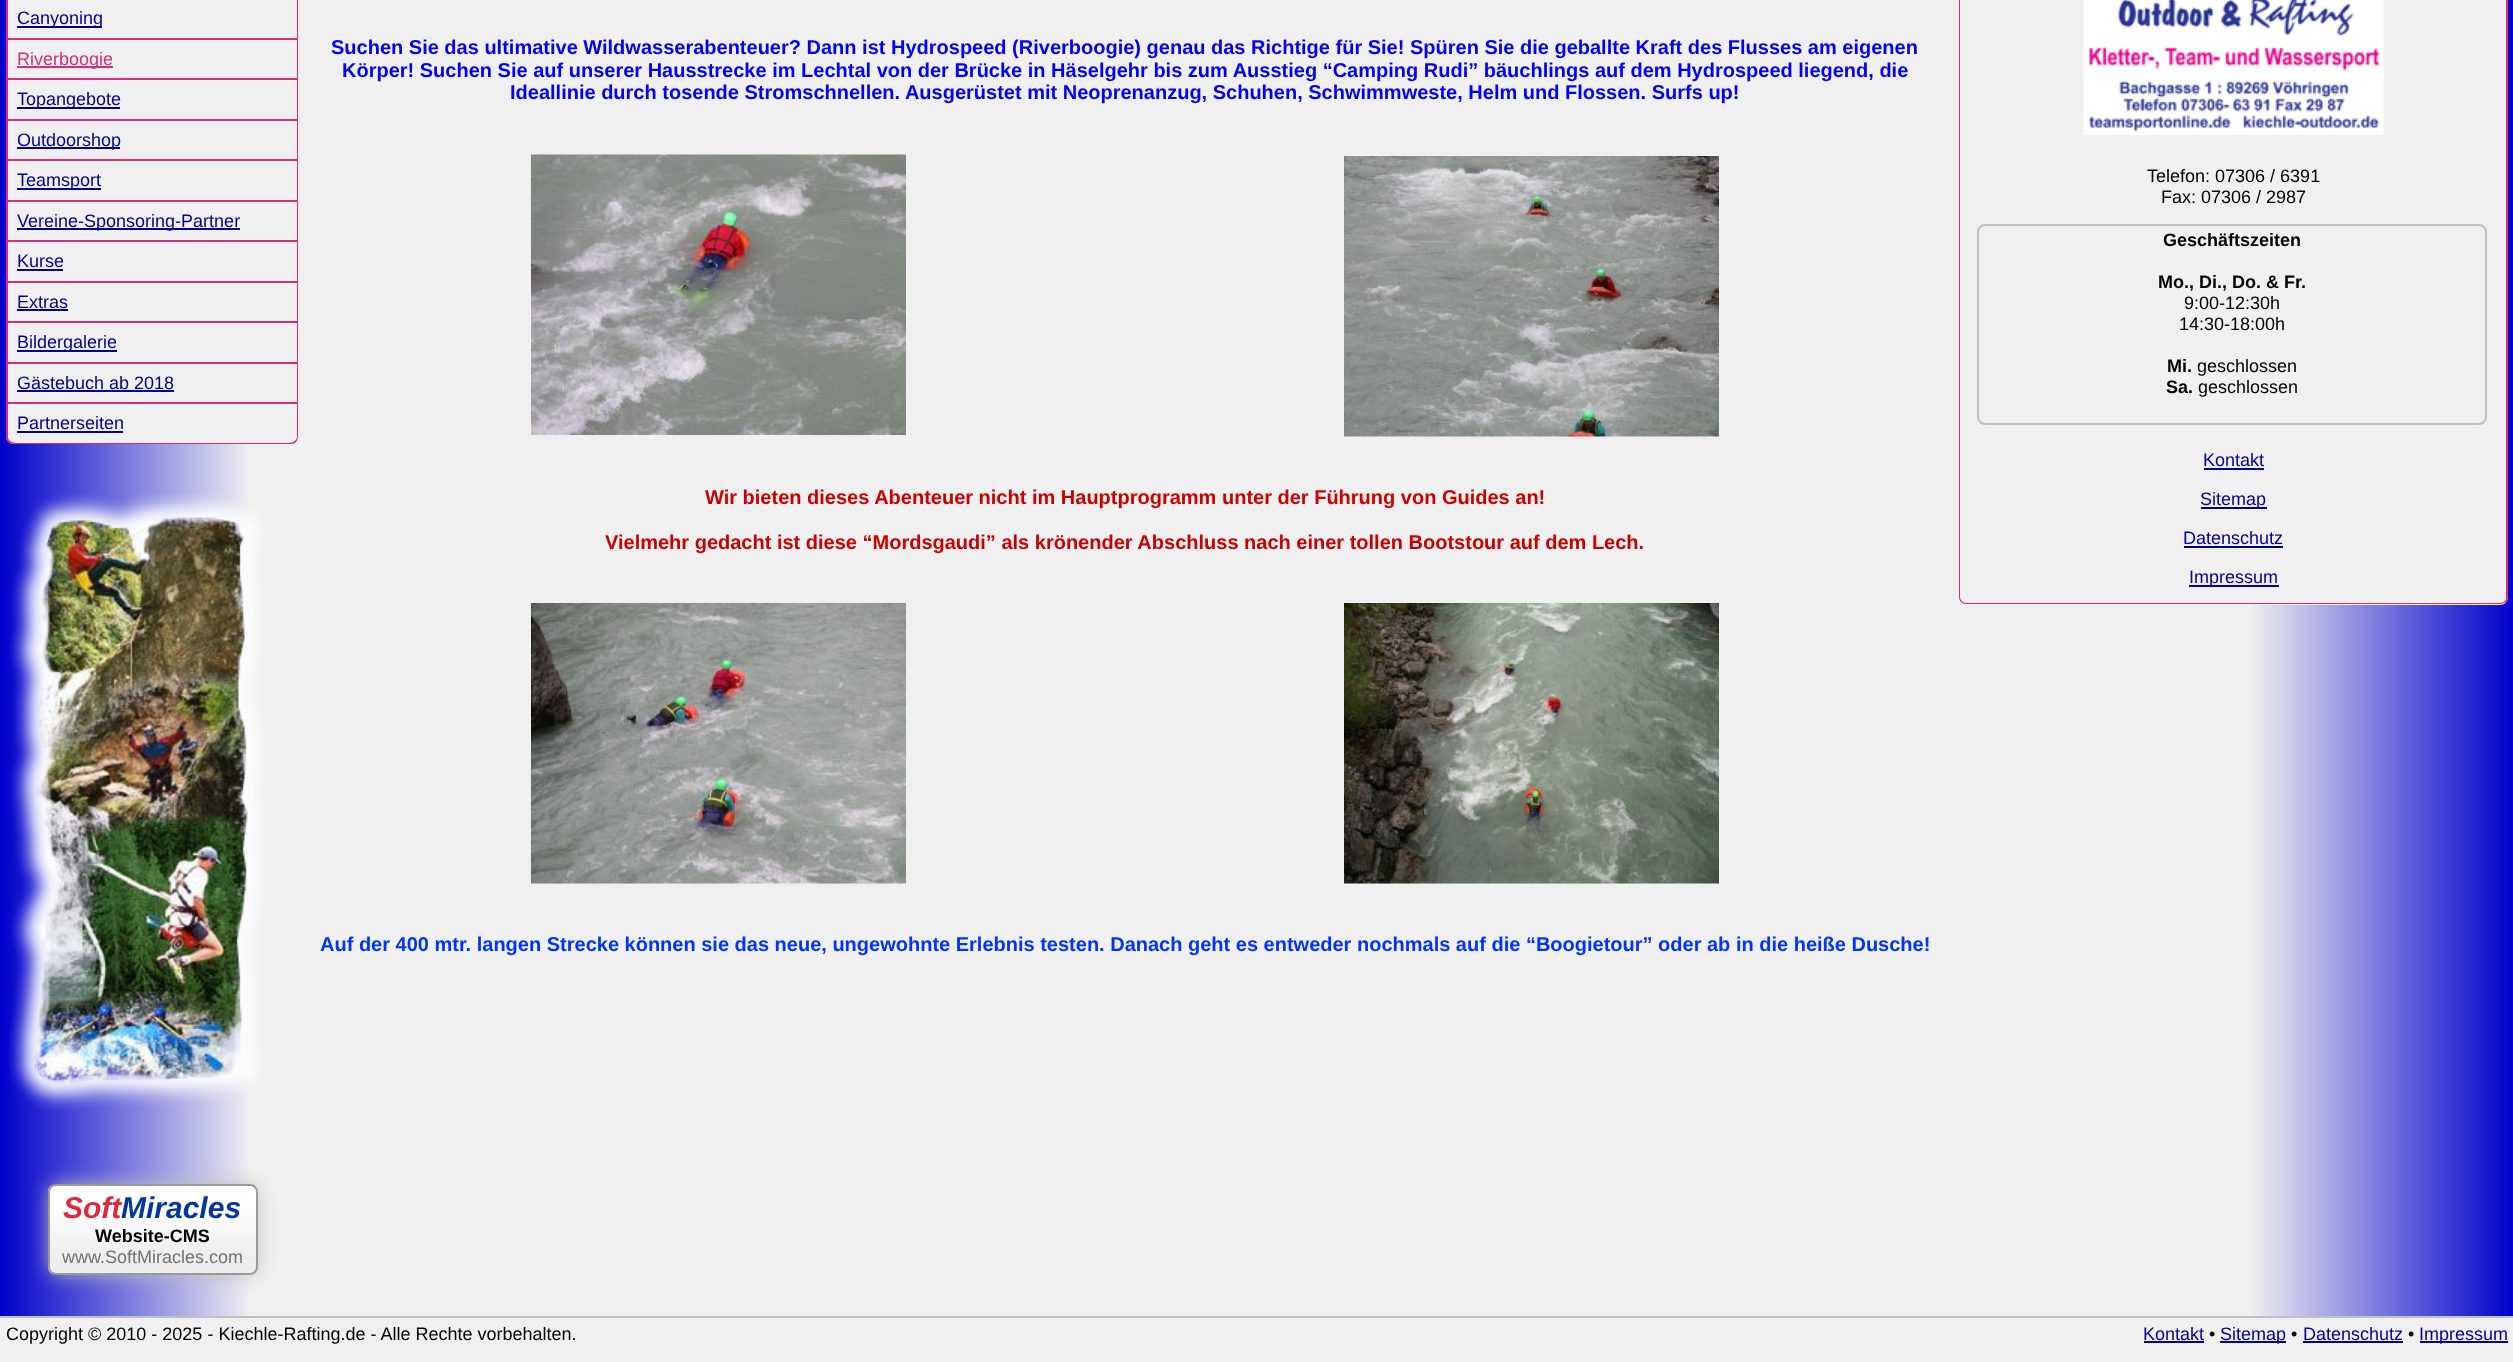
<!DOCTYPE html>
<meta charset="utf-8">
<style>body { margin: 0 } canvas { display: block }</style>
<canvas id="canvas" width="2513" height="1362"></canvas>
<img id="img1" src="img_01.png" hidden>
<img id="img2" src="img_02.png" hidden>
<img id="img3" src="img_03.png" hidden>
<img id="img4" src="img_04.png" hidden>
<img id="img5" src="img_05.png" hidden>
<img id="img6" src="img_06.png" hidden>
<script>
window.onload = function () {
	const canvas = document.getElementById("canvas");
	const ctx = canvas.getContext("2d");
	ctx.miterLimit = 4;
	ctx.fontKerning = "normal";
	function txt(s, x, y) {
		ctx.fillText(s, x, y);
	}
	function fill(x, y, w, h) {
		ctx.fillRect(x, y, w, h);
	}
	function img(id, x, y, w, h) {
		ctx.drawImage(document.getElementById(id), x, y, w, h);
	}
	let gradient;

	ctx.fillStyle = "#F0F0F0";
	fill(0, 0, 2513, 1362);
	gradient = ctx.createLinearGradient(0, 588, 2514, 588);
	gradient.addColorStop(0, "#0000CC");
	gradient.addColorStop(0.1, "#F0F0F0");
	ctx.fillStyle = gradient;
	fill(0, 0, 249, 1316);
	ctx.fillStyle = "#F0F0F0";
	ctx.beginPath();
	ctx.moveTo(6, -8);
	ctx.lineTo(299, -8);
	ctx.lineTo(299, 436);
	ctx.bezierCurveTo(299, 440.5, 295.5, 444, 291, 444);
	ctx.lineTo(14, 444);
	ctx.bezierCurveTo(9.5, 444, 6, 440.5, 6, 436);
	ctx.closePath();
	ctx.fill();
	ctx.fillStyle = "#D72C78";
	ctx.beginPath();
	ctx.moveTo(6, -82);
	ctx.lineTo(298, -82);
	ctx.lineTo(298, 436);
	ctx.bezierCurveTo(298, 441, 295, 444, 291, 444);
	ctx.lineTo(14, 444);
	ctx.bezierCurveTo(9, 444, 6, 441, 6, 436);
	ctx.closePath();
	ctx.moveTo(8, -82);
	ctx.lineTo(297, -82);
	ctx.lineTo(297, 436);
	ctx.bezierCurveTo(297, 440, 294, 442, 291, 442);
	ctx.lineTo(14, 442);
	ctx.bezierCurveTo(10, 442, 8, 440, 8, 436);
	ctx.closePath();
	ctx.fill("evenodd");
	ctx.fillStyle = "#000099";
	fill(17, 26, 85, 2);
	ctx.fillStyle = "#D72C78";
	fill(8, 38, 289, 2);
	fill(17, 66, 96, 2);
	fill(8, 78, 289, 2);
	ctx.fillStyle = "#000099";
	fill(17, 107, 103, 2);
	ctx.fillStyle = "#D72C78";
	fill(8, 119, 289, 2);
	ctx.fillStyle = "#000099";
	fill(17, 147, 103, 2);
	ctx.fillStyle = "#D72C78";
	fill(8, 159, 289, 2);
	ctx.fillStyle = "#000099";
	fill(17, 188, 84, 2);
	ctx.fillStyle = "#D72C78";
	fill(8, 200, 289, 2);
	ctx.fillStyle = "#000099";
	fill(17, 228, 223, 2);
	ctx.fillStyle = "#D72C78";
	fill(8, 240, 289, 2);
	ctx.fillStyle = "#000099";
	fill(17, 269, 46, 2);
	ctx.fillStyle = "#D72C78";
	fill(8, 281, 289, 2);
	ctx.fillStyle = "#000099";
	fill(17, 309, 51, 2);
	ctx.fillStyle = "#D72C78";
	fill(8, 321, 289, 2);
	ctx.fillStyle = "#000099";
	fill(17, 350, 100, 2);
	ctx.fillStyle = "#D72C78";
	fill(8, 362, 289, 2);
	ctx.fillStyle = "#000099";
	fill(17, 390, 157, 2);
	ctx.fillStyle = "#F0F0F0";
	ctx.beginPath();
	ctx.roundRect(8, 402, 289, 41, [0, 0, 8, 8]);
	ctx.fill();
	ctx.fillStyle = "#D72C78";
	fill(8, 402, 289, 2);
	ctx.fillStyle = "#000099";
	fill(17, 431, 106, 2);
	img("img1", 9, 493, 255, 617);
	ctx.fillStyle = "#C0C0C0";
	ctx.filter = "blur(10px)";
	ctx.beginPath();
	ctx.roundRect(50, 1185, 207, 89, 6);
	ctx.fill();
	ctx.filter = "none";
	ctx.save();
	ctx.beginPath();
	ctx.roundRect(48, 1184, 210, 91, 8);
	ctx.clip();
	gradient = ctx.createLinearGradient(153, 1185, 153, 1274);
	gradient.addColorStop(0.2, "#FFFFFF");
	gradient.addColorStop(0.8, "#EEEEEE");
	ctx.fillStyle = gradient;
	fill(48, 1185, 210, 89);
	ctx.restore();
	ctx.beginPath();
	ctx.roundRect(49, 1185, 208, 89, 7);
	ctx.strokeStyle = "#999999";
	ctx.lineWidth = 2;
	ctx.stroke();
	gradient = ctx.createLinearGradient(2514, 588, 306, 588);
	gradient.addColorStop(0, "#0000CC");
	gradient.addColorStop(0.12, "#F0F0F0");
	ctx.fillStyle = gradient;
	fill(2252, 0, 261, 1316);
	img("img2", 531, 154, 375, 281);
	img("img3", 1344, 156, 375, 281);
	img("img4", 531, 603, 375, 281);
	img("img5", 1344, 603, 375, 281);
	ctx.fillStyle = "#F0F0F0";
	ctx.beginPath();
	ctx.moveTo(1959, -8);
	ctx.lineTo(2508, -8);
	ctx.lineTo(2508, 597);
	ctx.bezierCurveTo(2508, 601.5, 2504.5, 605, 2500, 605);
	ctx.lineTo(1967, 605);
	ctx.bezierCurveTo(1962.5, 605, 1959, 601.5, 1959, 597);
	ctx.closePath();
	ctx.fill();
	ctx.fillStyle = "#D72C78";
	ctx.beginPath();
	ctx.moveTo(1959, -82);
	ctx.lineTo(2508, -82);
	ctx.lineTo(2508, 597);
	ctx.bezierCurveTo(2508, 601, 2505, 604, 2500, 604);
	ctx.lineTo(1966, 604);
	ctx.bezierCurveTo(1962, 604, 1959, 601, 1959, 597);
	ctx.closePath();
	ctx.moveTo(1960, -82);
	ctx.lineTo(2506, -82);
	ctx.lineTo(2506, 597);
	ctx.bezierCurveTo(2506, 600, 2504, 603, 2500, 603);
	ctx.lineTo(1966, 603);
	ctx.bezierCurveTo(1963, 603, 1960, 600, 1960, 597);
	ctx.closePath();
	ctx.fill("evenodd");
	img("img6", 2083, 0, 301, 135);
	ctx.beginPath();
	ctx.roundRect(1978, 225, 508, 199, 7);
	ctx.strokeStyle = "#C0C0C0";
	ctx.stroke();
	ctx.fillStyle = "#000099";
	fill(2204, 468, 60, 2);
	fill(2201, 507, 66, 2);
	fill(2184, 546, 99, 2);
	fill(2189, 585, 90, 2);
	ctx.fillStyle = "#C0C0C0";
	fill(0, 1316, 2513, 2);
	ctx.fillStyle = "#000099";
	fill(2144, 1341, 60, 2);
	fill(2220, 1341, 66, 2);
	fill(2303, 1341, 100, 2);
	fill(2420, 1341, 88, 2);
	ctx.font = "18px Liberation Sans";
	txt("Canyoning", 17, 24);
	ctx.fillStyle = "#D72C78";
	txt("Riverboogie", 17, 65);
	ctx.fillStyle = "#000099";
	txt("Topangebote", 17, 105);
	txt("Outdoorshop", 17, 146);
	txt("Teamsport", 17, 186);
	txt("Vereine-Sponsoring-Partner", 17, 227);
	txt("Kurse", 17, 267);
	txt("Extras", 17, 308);
	txt("Bildergalerie", 17, 348);
	txt("Gästebuch ab 2018", 17, 389);
	txt("Partnerseiten", 17, 429);
	ctx.font = "italic bold 30px Liberation Sans";
	ctx.fillStyle = "#DC2A3C";
	txt("Soft", 63, 1218);
	ctx.fillStyle = "#04369C";
	txt("Miracles", 121, 1218);
	ctx.font = "bold 18px Liberation Sans";
	ctx.fillStyle = "#000000";
	txt("Website-CMS", 95, 1242);
	ctx.font = "18px Liberation Sans";
	ctx.fillStyle = "#717171";
	txt("www.SoftMiracles.com", 62, 1263);
	ctx.font = "bold 20px Liberation Sans";
	ctx.fillStyle = "#0000FF";
	txt("Suchen Sie das ultimative Wildwasserabenteuer? Dann ist Hydrospeed (Riverboogie) genau das Richtige für Sie! Spüren Sie die geballte Kraft des Flusses am eigenen", 331, 54);
	txt("Körper! Suchen Sie auf unserer Hausstrecke im Lechtal von der Brücke in Häselgehr bis zum Ausstieg “Camping Rudi” bäuchlings auf dem Hydrospeed liegend, die", 342, 77);
	txt("Ideallinie durch tosende Stromschnellen. Ausgerüstet mit Neoprenanzug, Schuhen, Schwimmweste, Helm und Flossen. Surfs up!", 510, 99);
	ctx.fillStyle = "#CC0000";
	txt("Wir bieten dieses Abenteuer nicht im Hauptprogramm unter der Führung von Guides an!", 705, 504);
	txt("Vielmehr gedacht ist diese “Mordsgaudi” als krönender Abschluss nach einer tollen Bootstour auf dem Lech.", 605, 549);
	ctx.fillStyle = "#0033FF";
	txt("Auf der 400 mtr. langen Strecke können sie das neue, ungewohnte Erlebnis testen. Danach geht es entweder nochmals auf die “Boogietour” oder ab in die heiße Dusche!", 320, 951);
	ctx.font = "18px Liberation Sans";
	ctx.fillStyle = "#000000";
	txt("Telefon: 07306 / 6391", 2147, 182);
	txt("Fax: 07306 / 2987", 2161, 203);
	ctx.font = "bold 18px Liberation Sans";
	txt("Geschäftszeiten", 2163, 246);
	txt("Mo., Di., Do. & Fr.", 2158, 288);
	ctx.font = "18px Liberation Sans";
	txt("9:00-12:30h", 2184, 309);
	txt("14:30-18:00h", 2179, 330);
	ctx.font = "bold 18px Liberation Sans";
	txt("Mi.", 2167, 372);
	ctx.font = "18px Liberation Sans";
	txt("geschlossen", 2197, 372);
	ctx.font = "bold 18px Liberation Sans";
	txt("Sa.", 2166, 393);
	ctx.font = "18px Liberation Sans";
	txt("geschlossen", 2198, 393);
	ctx.fillStyle = "#000099";
	txt("Kontakt", 2203, 466);
	txt("Sitemap", 2200, 505);
	txt("Datenschutz", 2183, 544);
	txt("Impressum", 2189, 583);
	ctx.fillStyle = "#000000";
	txt("Copyright © 2010 - 2025 - Kiechle-Rafting.de - Alle Rechte vorbehalten.", 6, 1340);
	ctx.fillStyle = "#000099";
	txt("Kontakt", 2143, 1340);
	ctx.fillStyle = "#000000";
	txt("•", 2209, 1340);
	ctx.fillStyle = "#000099";
	txt("Sitemap", 2220, 1340);
	ctx.fillStyle = "#000000";
	txt("•", 2291, 1340);
	ctx.fillStyle = "#000099";
	txt("Datenschutz", 2303, 1340);
	ctx.fillStyle = "#000000";
	txt("•", 2408, 1340);
	ctx.fillStyle = "#000099";
	txt("Impressum", 2419, 1340);
};
</script>
